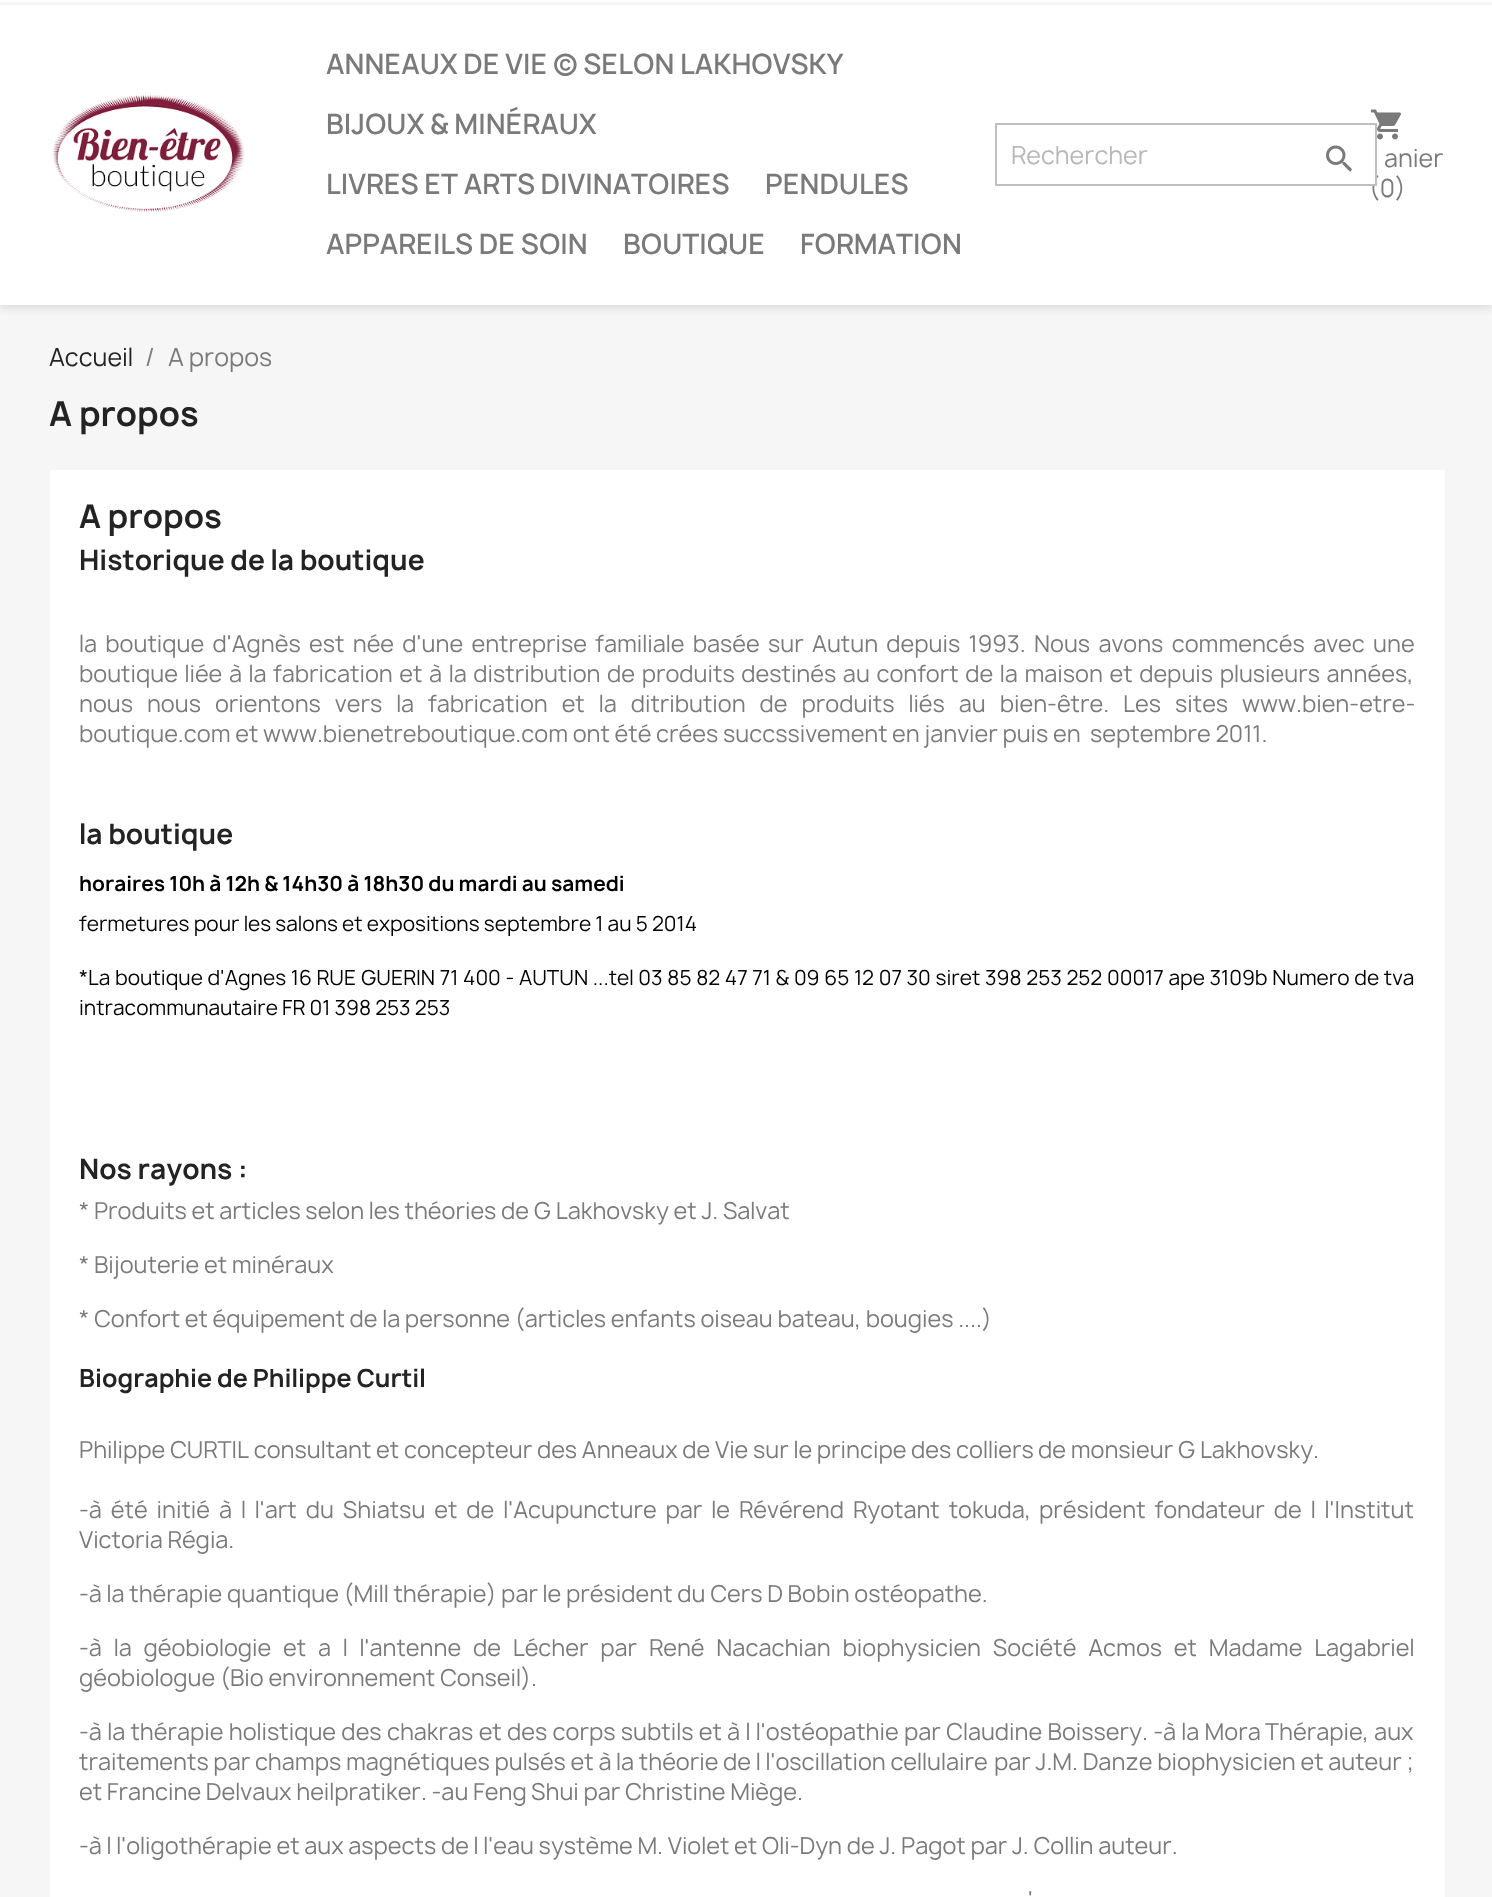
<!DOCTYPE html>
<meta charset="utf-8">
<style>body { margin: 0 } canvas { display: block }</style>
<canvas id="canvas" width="1492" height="1897"></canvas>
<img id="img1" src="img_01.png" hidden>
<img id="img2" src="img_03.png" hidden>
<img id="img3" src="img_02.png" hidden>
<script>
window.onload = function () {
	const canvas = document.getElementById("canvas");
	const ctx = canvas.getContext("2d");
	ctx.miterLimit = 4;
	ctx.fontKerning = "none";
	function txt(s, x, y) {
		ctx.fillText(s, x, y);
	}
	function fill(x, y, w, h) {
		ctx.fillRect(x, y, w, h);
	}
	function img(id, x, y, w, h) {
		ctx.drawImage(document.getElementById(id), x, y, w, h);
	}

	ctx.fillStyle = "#F6F6F6";
	fill(0, 0, 1492, 1897);
	ctx.fillStyle = "rgba(0, 0, 0, 0.11)";
	ctx.filter = "blur(4px)";
	ctx.beginPath();
	ctx.rect(0, 3, 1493, 305);
	ctx.fill();
	ctx.filter = "none";
	ctx.fillStyle = "#FFFFFF";
	fill(0, 0, 1492, 305);
	ctx.fillStyle = "#F6F6F6";
	fill(0, 2, 1492, 3);
	img("img1", 52, 94, 193, 119);
	img("img2", 1371, 109, 30, 31);
	ctx.fillStyle = "#FFFFFF";
	fill(50, 470, 1395, 1427);
	ctx.font = "600 27px Manrope";
	ctx.fillStyle = "#7A7A7A";
	txt("ANNEAUX DE VIE © SELON LAKHOVSKY", 326, 74);
	txt("BIJOUX & MINÉRAUX", 326, 134);
	txt("LIVRES ET ARTS DIVINATOIRES", 326, 194);
	txt("PENDULES", 765, 194);
	txt("APPAREILS DE SOIN", 326, 254);
	txt("BOUTIQUE", 623, 254);
	txt("FORMATION", 800, 254);
	ctx.font = "24px Manrope";
	txt("anier", 1384, 167);
	txt("(0)", 1369, 197);
	ctx.fillStyle = "#FFFFFF";
	fill(1373, 179, 2, 5);
	ctx.strokeStyle = "#BFBFBF";
	ctx.lineWidth = 2;
	ctx.strokeRect(996, 124, 380, 61);
	img("img3", 1326, 145, 27, 27);
	ctx.fillStyle = "#B7B7B7";
	txt("Rechercher", 1011, 164);
	ctx.fillStyle = "#232323";
	txt("Accueil", 49, 366);
	ctx.fillStyle = "#7A7A7A";
	txt("/", 145, 366);
	txt("A propos", 168, 366);
	ctx.font = "bold 33px Manrope";
	ctx.fillStyle = "#232323";
	txt("A propos", 49, 426);
	ctx.font = "bold 31.5px Manrope";
	txt("A propos", 79, 528);
	ctx.font = "bold 27px Manrope";
	txt("Historique de la boutique", 79, 570);
	ctx.wordSpacing = "3.6px";
	ctx.font = "22.5px Manrope";
	ctx.fillStyle = "#7A7A7A";
	txt("la boutique d'Agnès est née d'une entreprise familiale basée sur Autun depuis 1993. Nous avons commencés avec une", 79, 652);
	ctx.wordSpacing = "1.9px";
	txt("boutique liée à la fabrication et à la distribution de produits destinés au confort de la maison et depuis plusieurs années,", 79, 682);
	ctx.wordSpacing = "9.25px";
	txt("nous nous orientons vers la fabrication et la ditribution de produits liés au bien-être. Les sites www.bien-etre-", 79, 712);
	ctx.wordSpacing = "0px";
	txt("boutique.com et www.bienetreboutique.com ont été crées succssivement", 79, 742);
	txt("en janvier puis en  septembre 2011.", 892, 742);
	ctx.font = "bold 27px Manrope";
	ctx.fillStyle = "#232323";
	txt("la boutique", 79, 844);
	ctx.font = "bold 20px Manrope";
	ctx.fillStyle = "#000000";
	txt("horaires 10h à 12h & 14h30 à 18h30 du mardi au samedi", 79, 891);
	ctx.font = "20px Manrope";
	txt("fermetures pour les salons et expositions septembre 1 au 5 2014", 79, 931);
	ctx.wordSpacing = "0.55px";
	txt("*La boutique d'Agnes 16 RUE GUERIN 71 400 - AUTUN ...tel 03 85 82 47 71 & 09 65 12 07 30 siret 398 253 252 00017 ape 3109b Numero de tva", 79, 985);
	ctx.wordSpacing = "0px";
	txt("intracommunautaire FR 01 398 253 253", 79, 1015);
	ctx.font = "bold 27px Manrope";
	ctx.fillStyle = "#232323";
	txt("Nos rayons :", 79, 1179);
	ctx.font = "22.5px Manrope";
	ctx.fillStyle = "#7A7A7A";
	txt("* Produits et articles selon les théories de G Lakhovsky et J. Salvat", 79, 1219);
	txt("* Bijouterie et minéraux", 79, 1273);
	txt("* Confort et équipement de la personne (articles enfants oiseau bateau, bougies ....)", 79, 1327);
	ctx.font = "bold 24px Manrope";
	ctx.fillStyle = "#232323";
	txt("Biographie de Philippe Curtil", 79, 1387);
	ctx.font = "22.5px Manrope";
	ctx.fillStyle = "#7A7A7A";
	txt("Philippe CURTIL consultant et concepteur des Anneaux de Vie sur le principe des colliers", 79, 1458);
	txt("de monsieur G Lakhovsky.", 1038, 1458);
	ctx.wordSpacing = "4.25px";
	txt("-à été initié à l l'art du Shiatsu et de l'Acupuncture par le Révérend Ryotant tokuda,", 79, 1518);
	txt("président fondateur de l l'Institut", 1039, 1518);
	ctx.wordSpacing = "0px";
	txt("Victoria Régia.", 79, 1548);
	txt("-à la thérapie quantique (Mill thérapie) par le président du Cers D Bobin ostéopathe.", 79, 1602);
	ctx.wordSpacing = "7.1px";
	txt("-à la géobiologie et a l l'antenne de Lécher par René Nacachian biophysicien Société Acmos et Madame Lagabriel", 79, 1656);
	ctx.wordSpacing = "0px";
	txt("géobiologue (Bio environnement Conseil).", 79, 1686);
	ctx.wordSpacing = "0.6px";
	txt("-à la thérapie holistique des chakras et des corps subtils et à l l'ostéopathie par Claudine Boissery. -à la Mora", 79, 1740);
	txt("Thérapie, aux", 1265, 1740);
	ctx.wordSpacing = "0px";
	txt("traitements par champs magnétiques pulsés et à la théorie de l l'oscillation cellulaire", 79, 1770);
	txt("par J.M. Danze biophysicien et auteur ;", 994, 1770);
	txt("et Francine Delvaux heilpratiker. -au Feng", 79, 1800);
	txt("Shui par Christine Miège.", 531, 1800);
	txt("-à l l'oligothérapie et aux aspects de l l'eau système M. Violet et Oli-Dyn de J.", 79, 1854);
	txt("Pagot par J. Collin auteur.", 901, 1854);
	txt("'", 1028, 1908);
};
</script>
